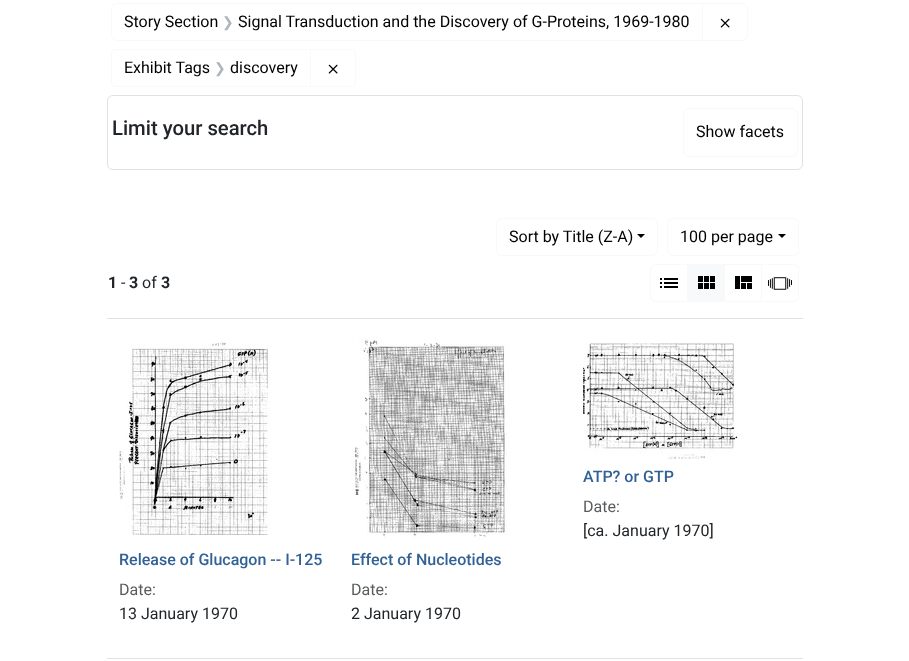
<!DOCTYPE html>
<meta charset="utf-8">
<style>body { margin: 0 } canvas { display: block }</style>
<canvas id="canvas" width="909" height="661"></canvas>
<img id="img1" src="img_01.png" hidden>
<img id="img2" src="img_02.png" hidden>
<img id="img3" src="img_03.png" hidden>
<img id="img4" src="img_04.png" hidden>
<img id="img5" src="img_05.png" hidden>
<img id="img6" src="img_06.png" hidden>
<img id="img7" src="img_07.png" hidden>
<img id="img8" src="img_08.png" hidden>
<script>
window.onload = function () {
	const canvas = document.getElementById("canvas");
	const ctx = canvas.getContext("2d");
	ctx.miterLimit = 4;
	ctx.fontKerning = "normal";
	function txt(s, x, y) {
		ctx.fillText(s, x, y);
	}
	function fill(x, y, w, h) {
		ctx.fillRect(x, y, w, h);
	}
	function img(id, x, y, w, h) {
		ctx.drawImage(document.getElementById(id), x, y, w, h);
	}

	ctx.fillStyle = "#FFFFFF";
	fill(0, 0, 909, 661);
	ctx.beginPath();
	ctx.roundRect(111.5, 3.5, 591, 37, [5.5, 0, 0, 5.5]);
	ctx.strokeStyle = "#F8F9FA";
	ctx.stroke();
	ctx.beginPath();
	ctx.roundRect(702.5, 3.5, 45, 37, [0, 5.5, 5.5, 0]);
	ctx.stroke();
	img("img1", 720, 18, 10, 10);
	ctx.beginPath();
	ctx.roundRect(111.5, 49.5, 199, 37, [5.5, 0, 0, 5.5]);
	ctx.stroke();
	ctx.beginPath();
	ctx.roundRect(310.5, 49.5, 45, 37, [0, 5.5, 5.5, 0]);
	ctx.stroke();
	img("img1", 328, 64, 10, 10);
	ctx.beginPath();
	ctx.roundRect(107.5, 95.5, 695, 74, 5.5);
	ctx.strokeStyle = "#DEE2E6";
	ctx.stroke();
	ctx.beginPath();
	ctx.roundRect(683.5, 108.5, 114, 48, 5.5);
	ctx.strokeStyle = "#F8F9FA";
	ctx.stroke();
	ctx.fillStyle = "#DEE2E6";
	fill(107, 318, 696, 1);
	ctx.beginPath();
	ctx.roundRect(496.5, 218.5, 161, 37, 5.5);
	ctx.stroke();
	ctx.fillStyle = "#000000";
	ctx.beginPath();
	ctx.moveTo(637, 234);
	ctx.lineTo(645, 234);
	ctx.lineTo(641, 238);
	ctx.closePath();
	ctx.fill();
	ctx.beginPath();
	ctx.roundRect(667.5, 218.5, 131, 37, 5.5);
	ctx.stroke();
	ctx.beginPath();
	ctx.moveTo(778, 234);
	ctx.lineTo(786, 234);
	ctx.lineTo(782, 238);
	ctx.closePath();
	ctx.fill();
	ctx.beginPath();
	ctx.roundRect(650.5, 264.5, 37, 37, [5.5, 0, 0, 5.5]);
	ctx.stroke();
	img("img2", 660, 278, 18, 10);
	ctx.fillStyle = "#F8F9FA";
	fill(688, 264, 36, 38);
	img("img3", 698, 276, 17, 13);
	ctx.strokeRect(724.5, 264.5, 37, 37);
	img("img4", 735, 276, 17, 13);
	ctx.beginPath();
	ctx.roundRect(761.5, 264.5, 37, 37, [0, 5.5, 5.5, 0]);
	ctx.stroke();
	img("img5", 768, 277, 24, 13);
	ctx.fillStyle = "#DEE2E6";
	fill(107, 658, 696, 1);
	img("img6", 583, 343, 158, 116);
	img("img7", 119, 341, 152, 194);
	img("img8", 351, 337, 159, 202);
	ctx.font = "16px Roboto";
	ctx.fillStyle = "#000000";
	txt("Story Section", 124, 27);
	ctx.font = "14px DejaVu Sans";
	ctx.fillStyle = "#ADB5BD";
	txt("❯", 222, 27);
	ctx.font = "16px Roboto";
	ctx.fillStyle = "#000000";
	txt("Signal Transduction and the Discovery of G-Proteins, 1969-1980", 238, 27);
	txt("Exhibit Tags", 124, 73);
	ctx.font = "14px DejaVu Sans";
	ctx.fillStyle = "#ADB5BD";
	txt("❯", 214, 73);
	ctx.font = "16px Roboto";
	ctx.fillStyle = "#000000";
	txt("discovery", 230, 73);
	ctx.font = "500 20.25px Roboto";
	ctx.fillStyle = "#212529";
	txt("Limit your search", 112, 135);
	ctx.font = "16px Roboto";
	ctx.fillStyle = "#000000";
	txt("Show facets", 696, 137);
	txt("Sort by Title (Z-A)", 509, 242);
	txt("100 per page", 680, 242);
	ctx.font = "bold 16px Roboto";
	ctx.fillStyle = "#212529";
	txt("1", 108, 288);
	ctx.font = "16px Roboto";
	txt("-", 121, 288);
	ctx.font = "bold 16px Roboto";
	txt("3", 129, 288);
	ctx.font = "16px Roboto";
	txt("of", 142, 288);
	ctx.font = "bold 16px Roboto";
	txt("3", 161, 288);
	ctx.font = "500 16px Roboto";
	ctx.fillStyle = "#326295";
	txt("ATP? or GTP", 583, 482);
	ctx.font = "16px Roboto";
	ctx.fillStyle = "#595C5F";
	txt("Date:", 583, 512);
	ctx.fillStyle = "#212529";
	txt("[ca. January 1970]", 583, 536);
	ctx.font = "500 16px Roboto";
	ctx.fillStyle = "#326295";
	txt("Release of Glucagon -- I-125", 119, 565);
	ctx.font = "16px Roboto";
	ctx.fillStyle = "#595C5F";
	txt("Date:", 119, 595);
	ctx.fillStyle = "#212529";
	txt("13 January 1970", 119, 619);
	ctx.font = "500 16px Roboto";
	ctx.fillStyle = "#326295";
	txt("Effect of Nucleotides", 351, 565);
	ctx.font = "16px Roboto";
	ctx.fillStyle = "#595C5F";
	txt("Date:", 351, 595);
	ctx.fillStyle = "#212529";
	txt("2 January 1970", 351, 619);
};
</script>
